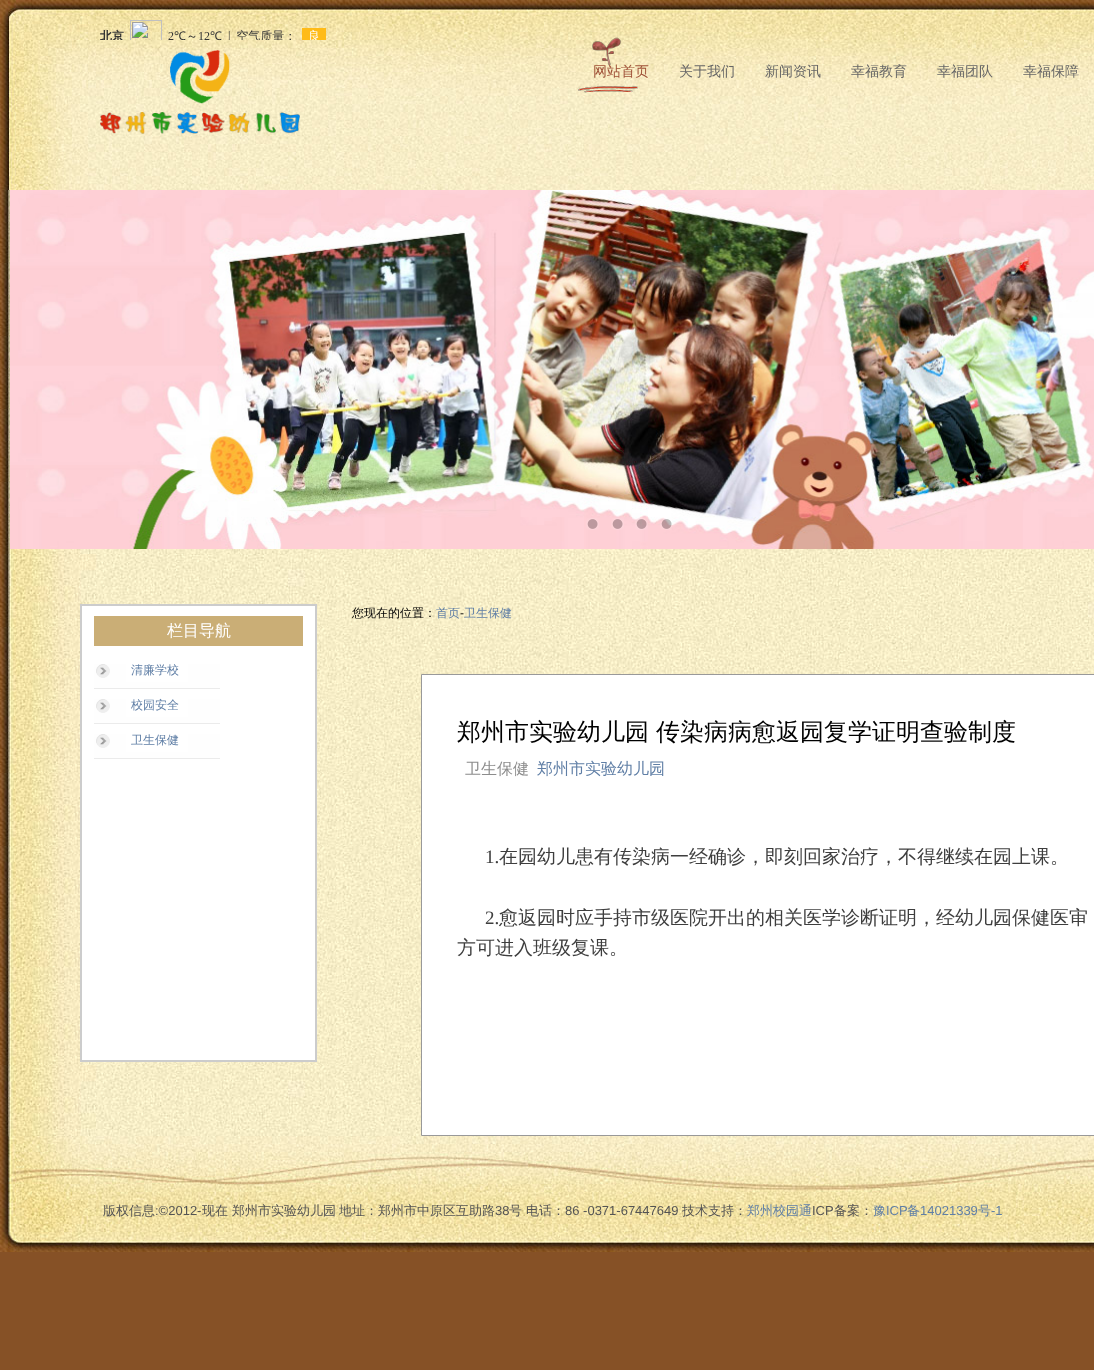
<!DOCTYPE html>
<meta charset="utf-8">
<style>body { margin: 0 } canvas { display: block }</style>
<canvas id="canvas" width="1094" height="1370"></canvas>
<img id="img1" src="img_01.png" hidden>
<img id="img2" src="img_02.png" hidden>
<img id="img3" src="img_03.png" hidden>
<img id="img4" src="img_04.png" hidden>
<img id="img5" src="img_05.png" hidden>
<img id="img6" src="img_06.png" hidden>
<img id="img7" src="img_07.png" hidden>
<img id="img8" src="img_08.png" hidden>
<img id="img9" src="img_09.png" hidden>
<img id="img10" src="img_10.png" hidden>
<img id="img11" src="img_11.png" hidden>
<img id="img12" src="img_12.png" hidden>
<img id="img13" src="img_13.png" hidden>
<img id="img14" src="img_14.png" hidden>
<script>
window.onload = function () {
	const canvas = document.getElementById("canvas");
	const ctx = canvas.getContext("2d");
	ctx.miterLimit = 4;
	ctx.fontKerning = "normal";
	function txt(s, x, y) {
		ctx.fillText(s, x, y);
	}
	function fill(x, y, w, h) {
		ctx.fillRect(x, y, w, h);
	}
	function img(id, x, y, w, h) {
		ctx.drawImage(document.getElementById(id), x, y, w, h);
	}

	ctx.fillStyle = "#865126";
	fill(0, 0, 1094, 1370);
	img("img1", 0, 0, 1094, 190);
	img("img2", 100, 20, 226, 20);
	img("img3", 170, 50, 60, 54);
	img("img4", 100, 112, 200, 22);
	img("img5", 578, 37, 60, 56);
	img("img6", 0, 190, 1094, 364);
	img("img7", 10, 190, 1084, 359);
	img("img8", 586, 518, 13, 12);
	img("img9", 611, 518, 13, 12);
	img("img10", 635, 518, 13, 12);
	img("img11", 660, 519, 12, 11);
	img("img12", 0, 554, 1094, 582);
	ctx.fillStyle = "#FFFFFF";
	ctx.beginPath();
	ctx.rect(81, 605, 235, 456);
	ctx.fill();
	ctx.strokeStyle = "#CCCCCC";
	ctx.lineWidth = 2;
	ctx.stroke();
	ctx.fillStyle = "#CAAE76";
	fill(94, 616, 209, 30);
	img("img13", 94, 664, 126, 25);
	img("img13", 94, 699, 126, 25);
	img("img13", 94, 734, 126, 25);
	ctx.fillStyle = "#FFFFFF";
	ctx.beginPath();
	ctx.rect(421.5, 674.5, 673, 461);
	ctx.fill();
	ctx.strokeStyle = "#999999";
	ctx.lineWidth = 1;
	ctx.stroke();
	img("img14", 0, 1136, 1094, 116);
	ctx.font = "500 14px WenQuanYi Zen Hei";
	ctx.fillStyle = "#9F5137";
	txt("网站首页", 593, 76);
	ctx.fillStyle = "#666666";
	txt("关于我们", 679, 76);
	txt("新闻资讯", 765, 76);
	txt("幸福教育", 851, 76);
	txt("幸福团队", 937, 76);
	txt("幸福保障", 1023, 76);
	ctx.font = "500 16px WenQuanYi Zen Hei";
	ctx.fillStyle = "#FFFFFF";
	txt("栏目导航", 167, 636);
	ctx.font = "500 12px WenQuanYi Zen Hei";
	ctx.fillStyle = "#607FA6";
	txt("清廉学校", 131, 674);
	txt("校园安全", 131, 709);
	txt("卫生保健", 131, 744);
	ctx.fillStyle = "#000000";
	txt("您现在的位置：", 352, 617);
	ctx.fillStyle = "#607FA6";
	txt("首页", 436, 617);
	ctx.font = "12px Liberation Sans";
	ctx.fillStyle = "#000000";
	txt("-", 460, 617);
	ctx.font = "500 12px WenQuanYi Zen Hei";
	ctx.fillStyle = "#607FA6";
	txt("卫生保健", 464, 617);
	ctx.font = "500 24px WenQuanYi Zen Hei";
	ctx.fillStyle = "#000000";
	txt("郑州市实验幼儿园", 457, 740);
	txt("传染病病愈返园复学证明查验制度", 656, 740);
	ctx.font = "500 16px WenQuanYi Zen Hei";
	ctx.fillStyle = "#8C8C8C";
	txt("卫生保健", 465, 774);
	ctx.fillStyle = "#607FA6";
	txt("郑州市实验幼儿园", 537, 774);
	ctx.font = "19px Liberation Serif";
	ctx.fillStyle = "#3E3E3E";
	txt("1.", 485, 863);
	ctx.font = "500 19px WenQuanYi Zen Hei";
	txt("在园幼儿患有传染病一经确诊，即刻回家治疗，不得继续在园上课。", 499, 863);
	ctx.font = "19px Liberation Serif";
	txt("2.", 485, 924);
	ctx.font = "500 19px WenQuanYi Zen Hei";
	txt("愈返园时应手持市级医院开出的相关医学诊断证明，经幼儿园保健医审", 499, 924);
	txt("方可进入班级复课。", 457, 954);
	ctx.font = "500 13px WenQuanYi Zen Hei";
	ctx.fillStyle = "#545454";
	txt("版权信息", 103, 1215);
	ctx.font = "13px Liberation Sans";
	txt(":©2012-", 155, 1215);
	ctx.font = "500 13px WenQuanYi Zen Hei";
	txt("现在 郑州市实验幼儿园", 202, 1215);
	txt("地址：郑州市中原区互助路", 339, 1215);
	ctx.font = "13px Liberation Sans";
	txt("38", 495, 1215);
	ctx.font = "500 13px WenQuanYi Zen Hei";
	txt("号 电话：", 509, 1215);
	ctx.font = "13px Liberation Sans";
	txt("86 -0371-67447649", 565, 1215);
	ctx.font = "500 13px WenQuanYi Zen Hei";
	txt("技术支持：", 682, 1215);
	ctx.fillStyle = "#607FA6";
	txt("郑州校园通", 747, 1215);
	ctx.font = "13px Liberation Sans";
	ctx.fillStyle = "#545454";
	txt("ICP", 812, 1215);
	ctx.font = "500 13px WenQuanYi Zen Hei";
	txt("备案：", 834, 1215);
	ctx.fillStyle = "#607FA6";
	txt("豫", 873, 1215);
	ctx.font = "13px Liberation Sans";
	txt("ICP", 886, 1215);
	ctx.font = "500 13px WenQuanYi Zen Hei";
	txt("备", 907, 1215);
	ctx.font = "13px Liberation Sans";
	txt("14021339", 920, 1215);
	ctx.font = "500 13px WenQuanYi Zen Hei";
	txt("号", 978, 1215);
	ctx.font = "13px Liberation Sans";
	txt("-1", 991, 1215);
};
</script>
